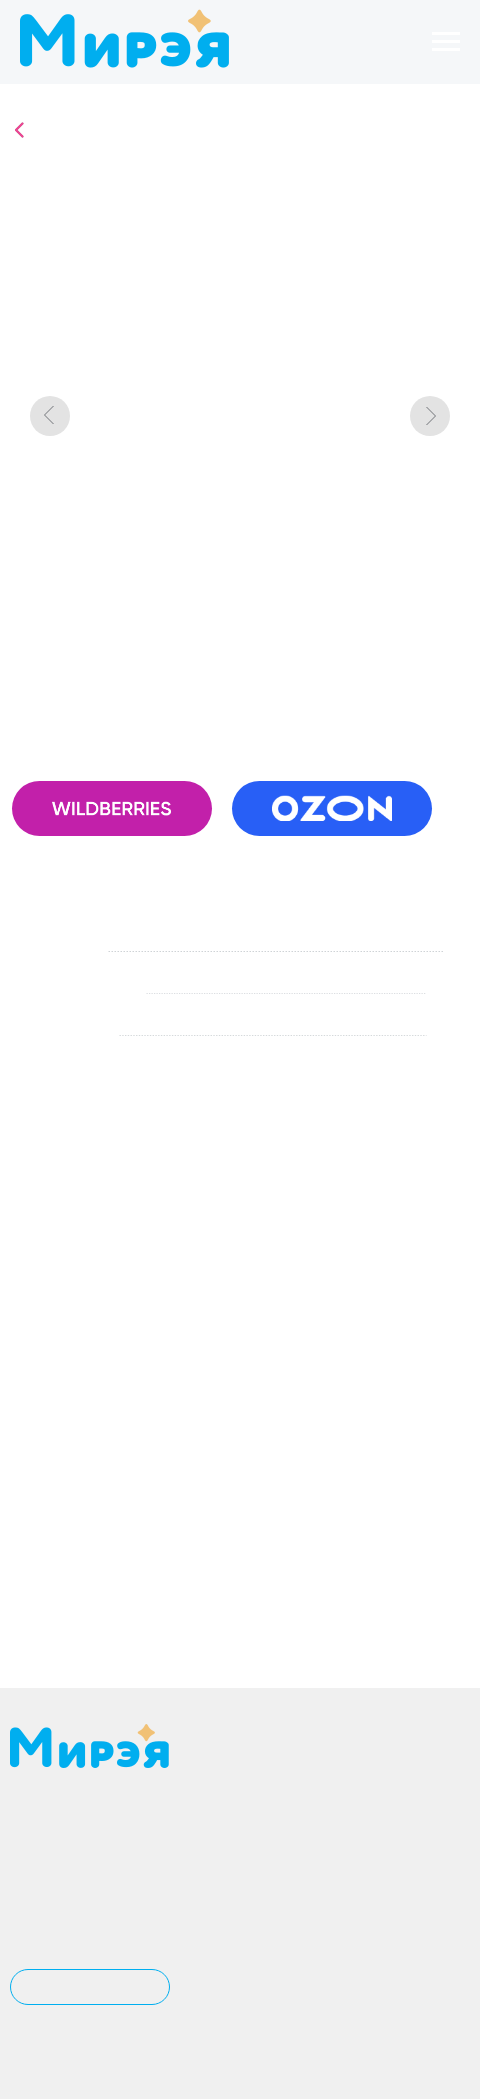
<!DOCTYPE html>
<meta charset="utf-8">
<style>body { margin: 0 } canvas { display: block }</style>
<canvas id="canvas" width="480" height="2099"></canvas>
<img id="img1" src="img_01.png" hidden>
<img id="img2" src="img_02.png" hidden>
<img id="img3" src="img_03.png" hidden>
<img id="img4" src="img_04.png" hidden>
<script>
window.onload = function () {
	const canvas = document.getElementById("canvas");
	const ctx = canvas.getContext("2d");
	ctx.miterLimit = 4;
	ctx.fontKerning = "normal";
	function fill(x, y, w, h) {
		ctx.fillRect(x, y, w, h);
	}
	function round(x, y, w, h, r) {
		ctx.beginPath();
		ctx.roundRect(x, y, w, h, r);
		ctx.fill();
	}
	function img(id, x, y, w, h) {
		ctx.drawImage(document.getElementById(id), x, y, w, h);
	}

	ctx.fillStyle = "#FFFFFF";
	fill(0, 0, 480, 2099);
	ctx.fillStyle = "#F5F7F9";
	fill(0, 0, 480, 84);
	img("img1", 20, 9, 209, 59);
	ctx.fillStyle = "#FFFFFF";
	fill(432, 32, 28, 3);
	fill(432, 40, 28, 3);
	fill(432, 48, 28, 3);
	ctx.beginPath();
	ctx.moveTo(22.5, 136.5);
	ctx.lineTo(16, 130);
	ctx.lineTo(22.5, 123.5);
	ctx.strokeStyle = "#898C8D";
	ctx.lineWidth = 2;
	ctx.lineCap = "round";
	ctx.lineJoin = "round";
	ctx.stroke();
	ctx.beginPath();
	ctx.moveTo(22.5, 136.5);
	ctx.lineTo(16, 130);
	ctx.lineTo(22.5, 123.5);
	ctx.strokeStyle = "#F04393";
	ctx.stroke();
	ctx.fillStyle = "#E3E3E3";
	ctx.beginPath();
	ctx.arc(50, 416, 20, 0, Math.PI * 2);
	ctx.fill();
	ctx.beginPath();
	ctx.moveTo(53.5, 406);
	ctx.lineTo(44.5, 415);
	ctx.lineTo(53.5, 424);
	ctx.strokeStyle = "#707378";
	ctx.lineWidth = 1;
	ctx.lineCap = "butt";
	ctx.lineJoin = "miter";
	ctx.stroke();
	ctx.beginPath();
	ctx.arc(430, 416, 20, 0, Math.PI * 2);
	ctx.fill();
	ctx.beginPath();
	ctx.moveTo(426.5, 425);
	ctx.lineTo(435.5, 416);
	ctx.lineTo(426.5, 407);
	ctx.stroke();
	ctx.fillStyle = "#C220AA";
	round(12, 781, 200, 55, 27.5);
	img("img2", 52, 801, 119, 15);
	ctx.fillStyle = "#285FF6";
	round(232, 781, 200, 55, 27.5);
	img("img3", 272, 795, 120, 26);
	ctx.beginPath();
	ctx.moveTo(108.5, 951.5);
	ctx.lineTo(443.5, 951.5);
	ctx.strokeStyle = "#C3C8CC";
	ctx.lineWidth = 0.8;
	ctx.setLineDash([1.5, 1.5]);
	ctx.stroke();
	ctx.beginPath();
	ctx.moveTo(146.5, 993.5);
	ctx.lineTo(425.5, 993.5);
	ctx.lineWidth = 0.6;
	ctx.setLineDash([1.25, 1.25]);
	ctx.stroke();
	ctx.beginPath();
	ctx.moveTo(119.5, 1035.5);
	ctx.lineTo(426.5, 1035.5);
	ctx.lineWidth = 0.7;
	ctx.setLineDash([1.38, 1.38]);
	ctx.stroke();
	ctx.fillStyle = "#F0F0F0";
	fill(0, 1688, 480, 411);
	img("img4", 10, 1724, 159, 44);
	ctx.beginPath();
	ctx.roundRect(10.5, 1969.5, 159, 35, 17.5);
	ctx.strokeStyle = "#00AEEF";
	ctx.lineWidth = 1;
	ctx.setLineDash([]);
	ctx.stroke();
};
</script>
